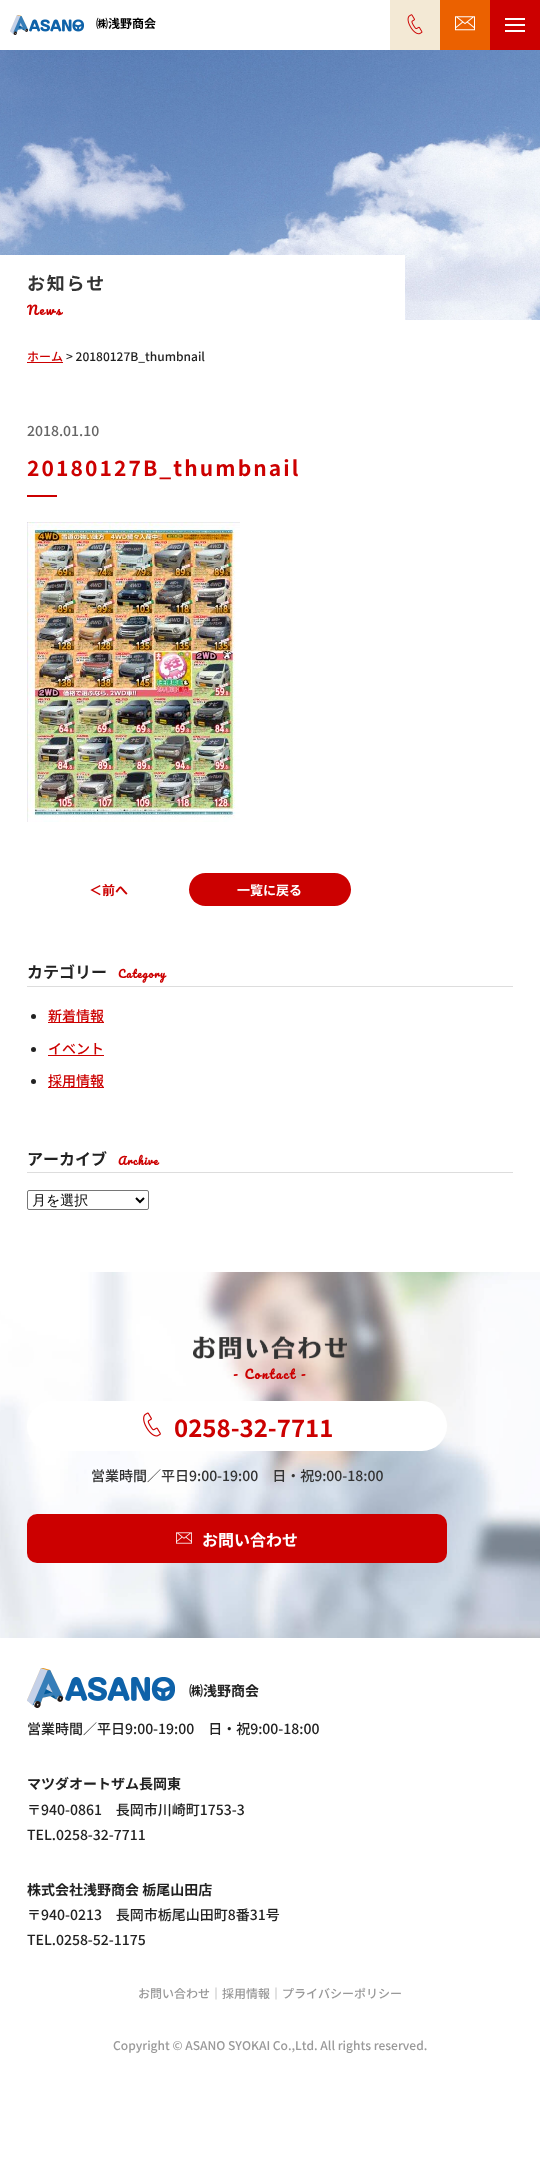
<!DOCTYPE html>
<meta charset="utf-8">
<style>body { margin: 0 } canvas { display: block }</style>
<canvas id="canvas" width="540" height="2181"></canvas>
<img id="img1" src="img_01.png" hidden>
<img id="img2" src="img_02.png" hidden>
<img id="img3" src="img_03.png" hidden>
<img id="img4" src="img_04.png" hidden>
<img id="img5" src="img_05.png" hidden>
<img id="img6" src="img_06.png" hidden>
<img id="img7" src="img_07.png" hidden>
<img id="img8" src="img_08.png" hidden>
<img id="img9" src="img_09.png" hidden>
<img id="img10" src="img_10.png" hidden>
<script>
window.onload = function () {
	const canvas = document.getElementById("canvas");
	const ctx = canvas.getContext("2d");
	ctx.miterLimit = 4;
	ctx.fontKerning = "none";
	function txt(s, x, y) {
		ctx.fillText(s, x, y);
	}
	function fill(x, y, w, h) {
		ctx.fillRect(x, y, w, h);
	}
	function round(x, y, w, h, r) {
		ctx.beginPath();
		ctx.roundRect(x, y, w, h, r);
		ctx.fill();
	}
	function img(id, x, y, w, h) {
		ctx.drawImage(document.getElementById(id), x, y, w, h);
	}

	ctx.fillStyle = "#FFFFFF";
	fill(0, 0, 540, 2181);
	img("img1", 10, 15, 74, 20);
	ctx.fillStyle = "#F3E9D5";
	fill(390, 0, 50, 50);
	img("img2", 407, 14, 16, 21);
	ctx.fillStyle = "#EB6100";
	fill(440, 0, 50, 50);
	img("img3", 455, 16, 20, 15);
	ctx.fillStyle = "#CC0000";
	fill(490, 0, 50, 50);
	ctx.fillStyle = "#FFFFFF";
	fill(505, 18, 20, 2);
	fill(505, 24, 20, 2);
	fill(505, 30, 20, 2);
	img("img4", 0, 50, 540, 270);
	fill(0, 255, 405, 65);
	ctx.fillStyle = "#CC0000";
	fill(27, 362, 36, 1);
	fill(27, 495, 30, 2);
	img("img5", 27, 522, 213, 300);
	round(189, 873, 162, 33, 16.5);
	ctx.fillStyle = "#DDDDDD";
	fill(27, 986, 486, 1);
	ctx.fillStyle = "#222222";
	ctx.beginPath();
	ctx.arc(33.5, 1016.5, 2.5, 0, Math.PI * 2);
	ctx.fill();
	ctx.fillStyle = "#CC0000";
	fill(48, 1022, 56, 1);
	ctx.fillStyle = "#222222";
	ctx.beginPath();
	ctx.arc(33.5, 1049.5, 2.5, 0, Math.PI * 2);
	ctx.fill();
	ctx.fillStyle = "#CC0000";
	fill(48, 1055, 56, 1);
	ctx.fillStyle = "#222222";
	ctx.beginPath();
	ctx.arc(33.5, 1081.5, 2.5, 0, Math.PI * 2);
	ctx.fill();
	ctx.fillStyle = "#CC0000";
	fill(48, 1087, 56, 1);
	ctx.fillStyle = "#DDDDDD";
	fill(27, 1172, 486, 1);
	ctx.beginPath();
	ctx.roundRect(27.5, 1190.5, 121, 19, 1.5);
	ctx.strokeStyle = "#767676";
	ctx.stroke();
	ctx.beginPath();
	ctx.moveTo(136, 1198);
	ctx.lineTo(140, 1202);
	ctx.lineTo(144, 1198);
	ctx.strokeStyle = "#000000";
	ctx.lineWidth = 2;
	ctx.stroke();
	img("img6", 0, 1272, 540, 366);
	img("img7", 193, 1336, 154, 23);
	ctx.fillStyle = "#FFFFFF";
	round(27, 1401, 420, 50, 25);
	img("img8", 143, 1412, 18, 25);
	ctx.fillStyle = "#CC0000";
	round(27, 1514, 420, 49, 10);
	img("img9", 176, 1532, 16, 12);
	img("img10", 27, 1668, 148, 40);
	ctx.font = "bold 12px Noto Sans JP";
	ctx.fillStyle = "#000000";
	txt("㈱浅野商会", 96, 28);
	ctx.letterSpacing = "1.75px";
	ctx.font = "bold 18px Noto Sans JP";
	ctx.fillStyle = "#333333";
	txt("お知らせ", 27, 290);
	ctx.font = "bold 12px Pacifico";
	ctx.fillStyle = "#CC0000";
	txt("News", 27, 315);
	ctx.letterSpacing = "0px";
	ctx.font = "500 12px Noto Sans JP";
	txt("ホーム", 27, 361);
	ctx.fillStyle = "#222222";
	txt("> 20180127B_thumbnail", 66, 361);
	ctx.font = "500 14px Noto Sans JP";
	ctx.fillStyle = "#666666";
	txt("2018.01.10", 27, 436);
	ctx.letterSpacing = "2.1px";
	ctx.font = "bold 21px Noto Sans JP";
	ctx.fillStyle = "#CC0000";
	txt("20180127B_thumbnail", 27, 476);
	ctx.letterSpacing = "0px";
	ctx.font = "bold 13px Noto Sans JP";
	txt("＜前へ", 89, 895);
	ctx.fillStyle = "#FFFFFF";
	txt("一覧に戻る", 237, 895);
	ctx.font = "bold 16px Noto Sans JP";
	ctx.fillStyle = "#222222";
	txt("カテゴリー", 27, 978);
	ctx.letterSpacing = "1px";
	ctx.font = "bold 10.5px Pacifico";
	ctx.fillStyle = "#CC0000";
	txt("Category", 118, 978);
	ctx.letterSpacing = "0px";
	ctx.font = "500 14px Noto Sans JP";
	txt("新着情報", 48, 1021);
	txt("イベント", 48, 1054);
	txt("採用情報", 48, 1086);
	ctx.font = "bold 16px Noto Sans JP";
	ctx.fillStyle = "#222222";
	txt("アーカイブ", 27, 1165);
	ctx.letterSpacing = "1px";
	ctx.font = "bold 10.5px Pacifico";
	ctx.fillStyle = "#CC0000";
	txt("Archive", 118, 1165);
	ctx.letterSpacing = "0px";
	ctx.font = "500 14px WenQuanYi Zen Hei";
	ctx.fillStyle = "#000000";
	txt("月を選択", 32, 1205);
	ctx.letterSpacing = "1.75px";
	ctx.font = "bold 12px Pacifico";
	ctx.fillStyle = "#CC0000";
	txt("- Contact -", 233, 1379);
	ctx.letterSpacing = "0px";
	ctx.font = "bold 24px Noto Sans JP";
	txt("0258-32-7711", 174, 1437);
	ctx.font = "500 14px Noto Sans JP";
	ctx.fillStyle = "#333333";
	txt("営業時間／平日9:00-19:00　日・祝9:00-18:00", 91, 1481);
	ctx.font = "bold 16px Noto Sans JP";
	ctx.fillStyle = "#FFFFFF";
	txt("お問い合わせ", 202, 1546);
	ctx.font = "bold 14px Noto Sans JP";
	ctx.fillStyle = "#222222";
	txt("㈱浅野商会", 189, 1696);
	ctx.font = "500 14px Noto Sans JP";
	txt("営業時間／平日9:00-19:00　日・祝9:00-18:00", 27, 1734);
	ctx.font = "bold 14px Noto Sans JP";
	txt("マツダオートザム長岡東", 27, 1789);
	ctx.font = "500 14px Noto Sans JP";
	txt("〒940-0861　長岡市川崎町1753-3", 27, 1815);
	txt("TEL.0258-32-7711", 27, 1840);
	ctx.font = "bold 14px Noto Sans JP";
	txt("株式会社浅野商会 栃尾山田店", 27, 1895);
	ctx.font = "500 14px Noto Sans JP";
	txt("〒940-0213　長岡市栃尾山田町8番31号", 27, 1920);
	txt("TEL.0258-52-1175", 27, 1945);
	ctx.font = "500 12px Noto Sans JP";
	ctx.fillStyle = "#999999";
	txt("お問い合わせ｜採用情報｜プライバシーポリシー", 138, 1998);
	txt("Copyright © ASANO SYOKAI Co.,Ltd. All rights reserved.", 113, 2050);
};
</script>
